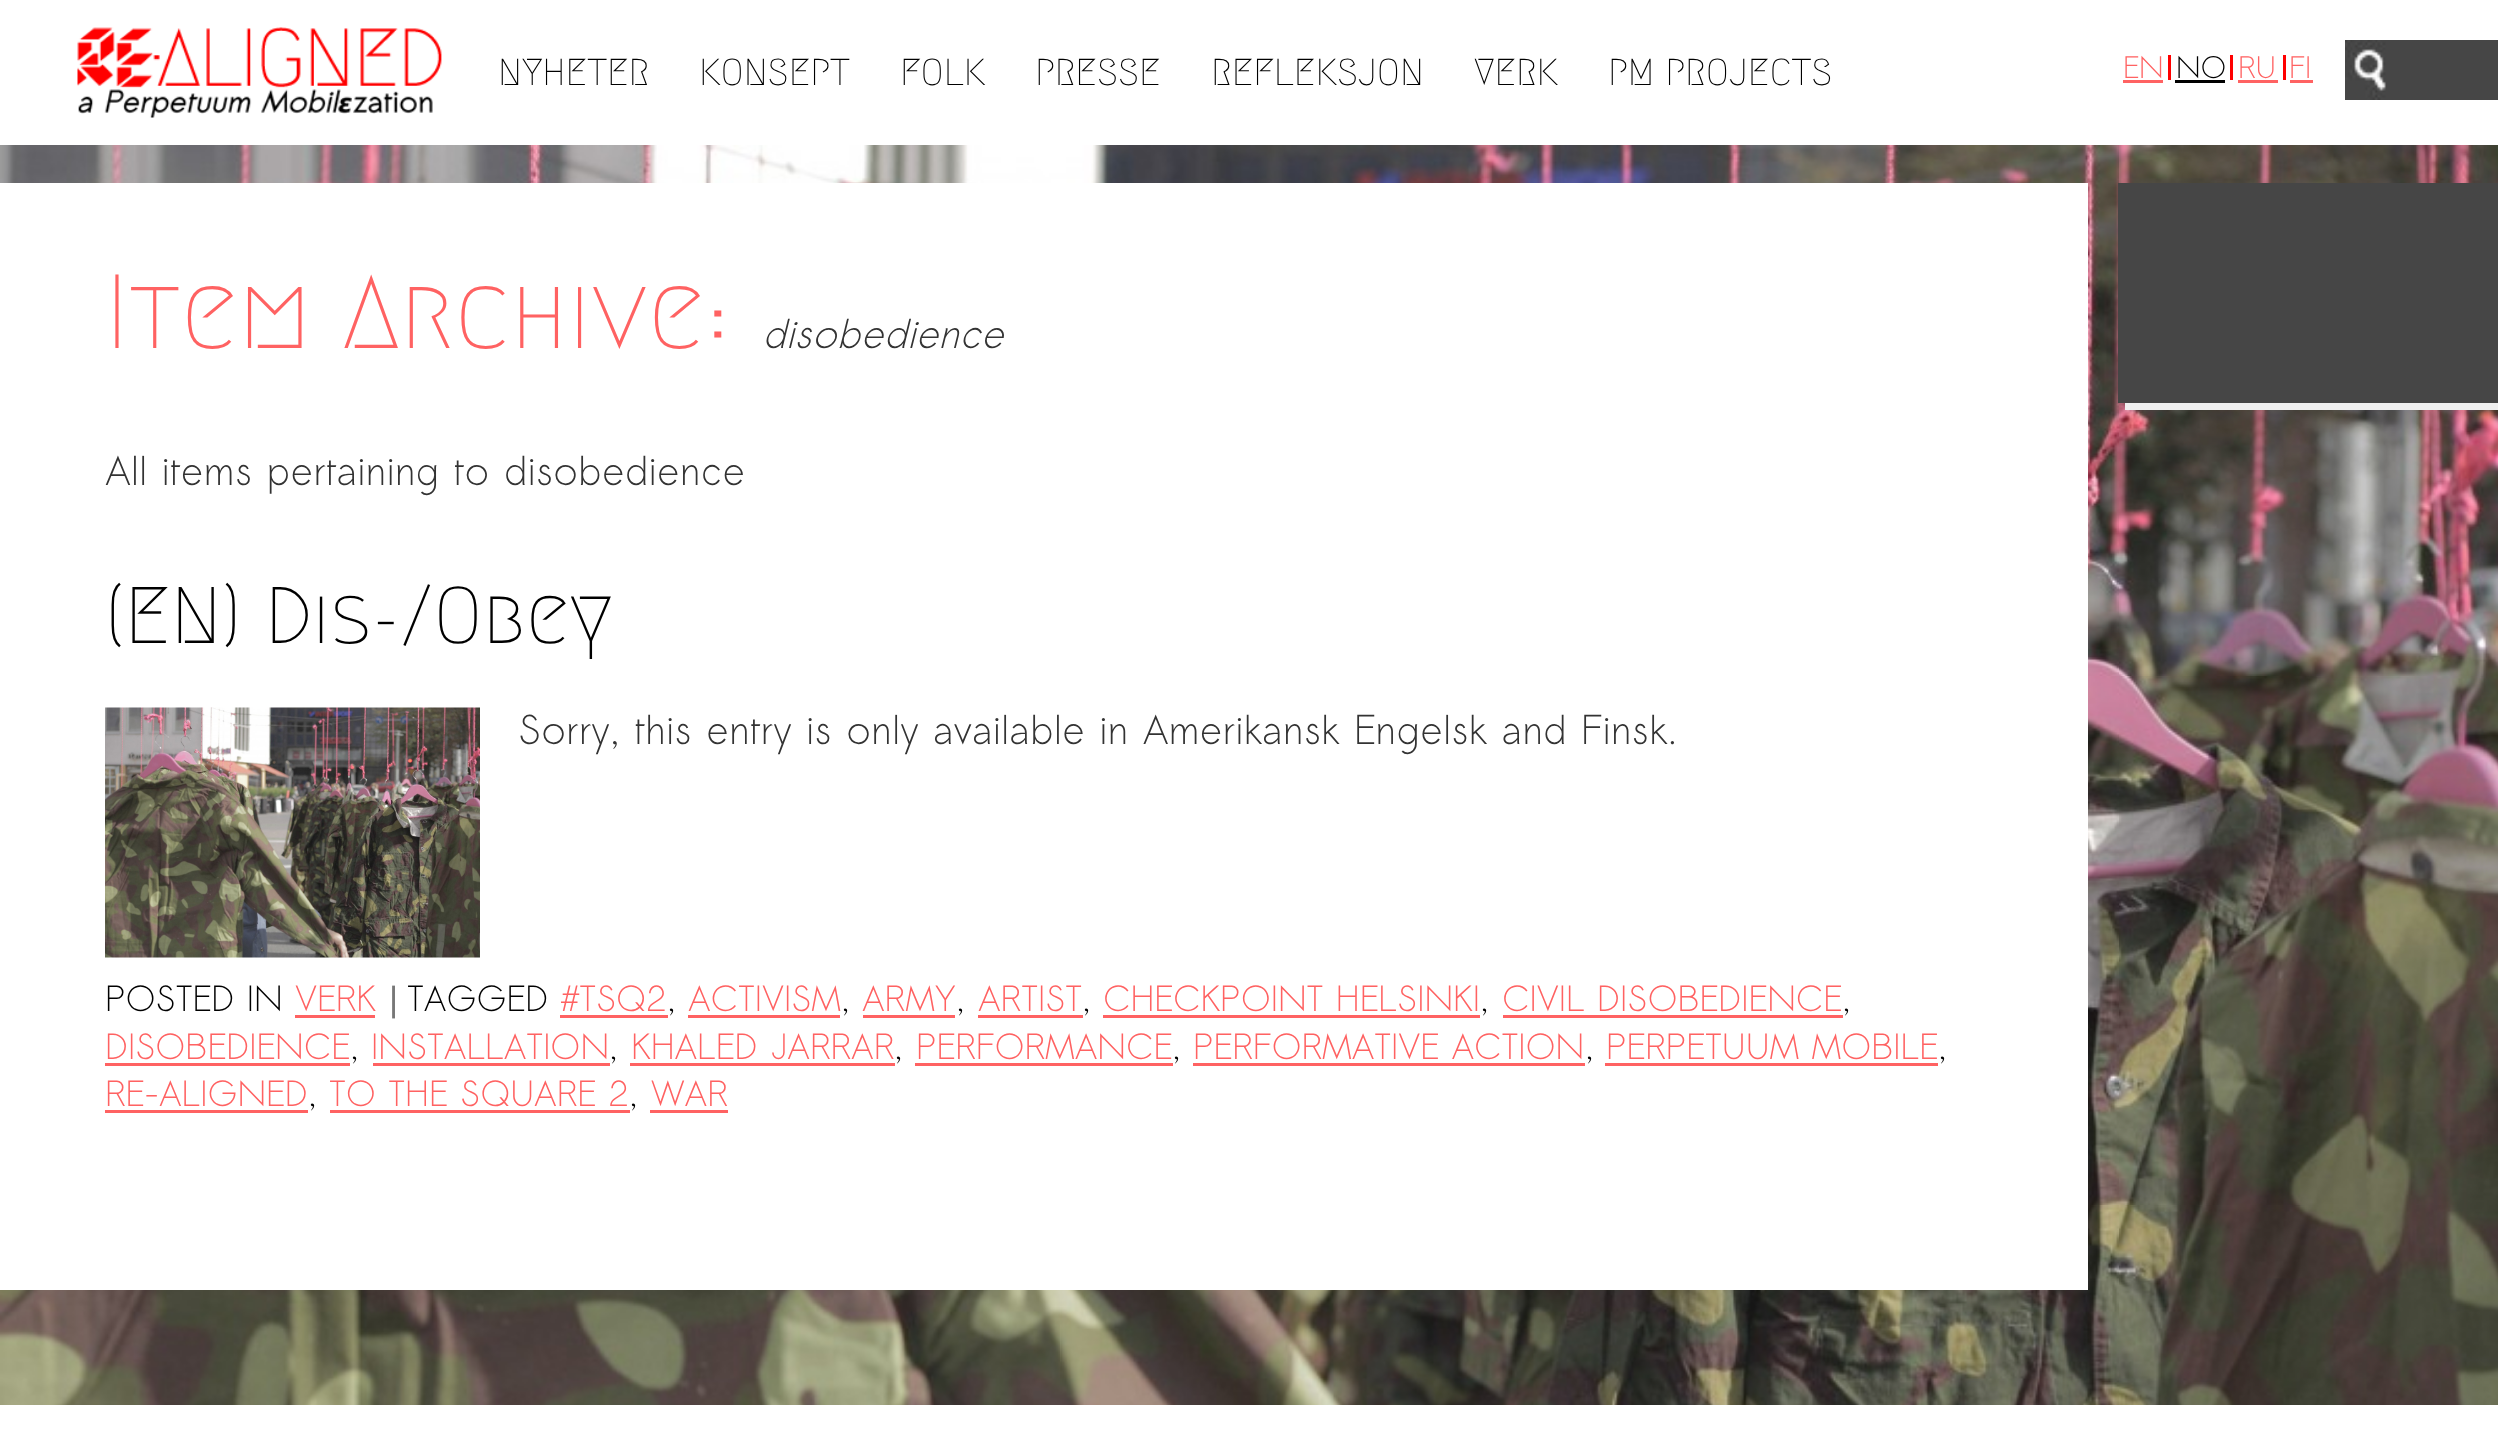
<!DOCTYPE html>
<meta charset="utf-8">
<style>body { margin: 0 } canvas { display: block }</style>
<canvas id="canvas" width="2498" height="1453"></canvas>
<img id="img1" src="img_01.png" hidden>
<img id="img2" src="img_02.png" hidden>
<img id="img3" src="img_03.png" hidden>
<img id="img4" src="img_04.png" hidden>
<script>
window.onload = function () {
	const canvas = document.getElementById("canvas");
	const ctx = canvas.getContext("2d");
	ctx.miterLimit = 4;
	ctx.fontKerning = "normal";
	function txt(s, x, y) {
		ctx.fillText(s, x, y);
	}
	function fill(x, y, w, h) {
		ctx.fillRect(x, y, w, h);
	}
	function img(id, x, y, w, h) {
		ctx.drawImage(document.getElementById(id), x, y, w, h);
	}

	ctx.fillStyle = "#FFFFFF";
	fill(0, 0, 2498, 1453);
	img("img1", 77, 27, 365, 91);
	ctx.fillStyle = "#FF6262";
	fill(2123, 80, 40, 3);
	ctx.fillStyle = "#FF0000";
	fill(2168, 55, 3, 25);
	ctx.fillStyle = "#000000";
	fill(2175, 80, 50, 3);
	ctx.fillStyle = "#FF0000";
	fill(2230, 55, 3, 25);
	ctx.fillStyle = "#FF6262";
	fill(2238, 80, 40, 3);
	ctx.fillStyle = "#FF0000";
	fill(2283, 55, 3, 25);
	ctx.fillStyle = "#FF6262";
	fill(2290, 80, 23, 3);
	ctx.fillStyle = "#464646";
	fill(2386, 40, 112, 60);
	img("img2", 2345, 40, 41, 60);
	img("img3", 0, 145, 2498, 1260);
	ctx.fillStyle = "#FFFFFF";
	fill(0, 183, 2088, 1107);
	img("img4", 105, 707, 375, 251);
	ctx.fillStyle = "#FF6262";
	fill(295, 1015, 80, 3);
	fill(560, 1015, 108, 3);
	fill(688, 1015, 152, 3);
	fill(863, 1015, 92, 3);
	fill(978, 1015, 105, 3);
	fill(1103, 1015, 377, 3);
	fill(1503, 1015, 340, 3);
	fill(105, 1063, 245, 3);
	fill(373, 1063, 237, 3);
	fill(630, 1063, 265, 3);
	fill(915, 1063, 258, 3);
	fill(1193, 1063, 392, 3);
	fill(1605, 1063, 333, 3);
	fill(105, 1110, 203, 3);
	fill(330, 1110, 300, 3);
	fill(650, 1110, 78, 3);
	ctx.fillStyle = "#F0F0F0";
	ctx.beginPath();
	ctx.moveTo(2125, 402);
	ctx.lineTo(2125, 410);
	ctx.lineTo(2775, 410);
	ctx.lineTo(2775, 190);
	ctx.lineTo(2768, 190);
	ctx.lineTo(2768, 402);
	ctx.closePath();
	ctx.fill();
	ctx.fillStyle = "#464646";
	fill(2118, 183, 380, 220);
	ctx.font = "500 37.5px Megrim";
	ctx.fillStyle = "#000000";
	txt("NYHETER", 498, 85);
	txt("KONSEPT", 699, 85);
	txt("FOLK", 900, 85);
	txt("PRESSE", 1035, 85);
	txt("REFLEKSJON", 1211, 85);
	txt("VERK", 1474, 85);
	txt("PM PROJECTS", 1608, 85);
	ctx.font = "30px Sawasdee";
	ctx.fillStyle = "#FF6262";
	txt("EN", 2123, 78);
	ctx.fillStyle = "#000000";
	txt("NO", 2176, 78);
	ctx.fillStyle = "#FF6262";
	txt("RU", 2238, 78);
	txt("FI", 2289, 78);
	ctx.font = "500 105px Megrim";
	txt("Item Archive:", 105, 348);
	ctx.font = "italic 40px Sawasdee";
	ctx.fillStyle = "#333333";
	txt("disobedience", 762, 348);
	ctx.font = "40px Sawasdee";
	txt("All items pertaining to disobedience", 105, 485);
	ctx.font = "500 80px Megrim";
	ctx.fillStyle = "#000000";
	txt("(EN) Dis-/Obey", 105, 643);
	ctx.font = "40px Sawasdee";
	ctx.fillStyle = "#333333";
	txt("Sorry, this entry is only available in Amerikansk Engelsk and Finsk.", 518, 744);
	ctx.font = "35px Sawasdee";
	ctx.fillStyle = "#000000";
	txt("POSTED IN", 105, 1011);
	ctx.fillStyle = "#FF6262";
	txt("VERK", 295, 1011);
	ctx.font = "35px Liberation Sans";
	ctx.fillStyle = "#777777";
	txt("|", 389, 1011);
	ctx.font = "35px Sawasdee";
	ctx.fillStyle = "#000000";
	txt("TAGGED", 407, 1011);
	ctx.fillStyle = "#FF6262";
	txt("#TSQ2", 561, 1011);
	ctx.fillStyle = "#000000";
	txt(",", 667, 1011);
	ctx.fillStyle = "#FF6262";
	txt("ACTIVISM", 688, 1011);
	ctx.fillStyle = "#000000";
	txt(",", 841, 1011);
	ctx.fillStyle = "#FF6262";
	txt("ARMY", 862, 1011);
	ctx.fillStyle = "#000000";
	txt(",", 956, 1011);
	ctx.fillStyle = "#FF6262";
	txt("ARTIST", 978, 1011);
	ctx.fillStyle = "#000000";
	txt(",", 1082, 1011);
	ctx.fillStyle = "#FF6262";
	txt("CHECKPOINT HELSINKI", 1103, 1011);
	ctx.fillStyle = "#000000";
	txt(",", 1480, 1011);
	ctx.fillStyle = "#FF6262";
	txt("CIVIL DISOBEDIENCE", 1502, 1011);
	ctx.fillStyle = "#000000";
	txt(",", 1842, 1011);
	ctx.fillStyle = "#FF6262";
	txt("DISOBEDIENCE", 105, 1059);
	ctx.fillStyle = "#000000";
	txt(",", 350, 1059);
	ctx.fillStyle = "#FF6262";
	txt("INSTALLATION", 371, 1059);
	ctx.fillStyle = "#000000";
	txt(",", 609, 1059);
	ctx.fillStyle = "#FF6262";
	txt("KHALED JARRAR", 631, 1059);
	ctx.fillStyle = "#000000";
	txt(",", 894, 1059);
	ctx.fillStyle = "#FF6262";
	txt("PERFORMANCE", 916, 1059);
	ctx.fillStyle = "#000000";
	txt(",", 1172, 1059);
	ctx.fillStyle = "#FF6262";
	txt("PERFORMATIVE ACTION", 1193, 1059);
	ctx.fillStyle = "#000000";
	txt(",", 1585, 1059);
	ctx.fillStyle = "#FF6262";
	txt("PERPETUUM MOBILE", 1606, 1059);
	ctx.fillStyle = "#000000";
	txt(",", 1938, 1059);
	ctx.fillStyle = "#FF6262";
	txt("RE-ALIGNED", 105, 1106);
	ctx.fillStyle = "#000000";
	txt(",", 308, 1106);
	ctx.fillStyle = "#FF6262";
	txt("TO THE SQUARE 2", 329, 1106);
	ctx.fillStyle = "#000000";
	txt(",", 629, 1106);
	ctx.fillStyle = "#FF6262";
	txt("WAR", 651, 1106);
};
</script>
